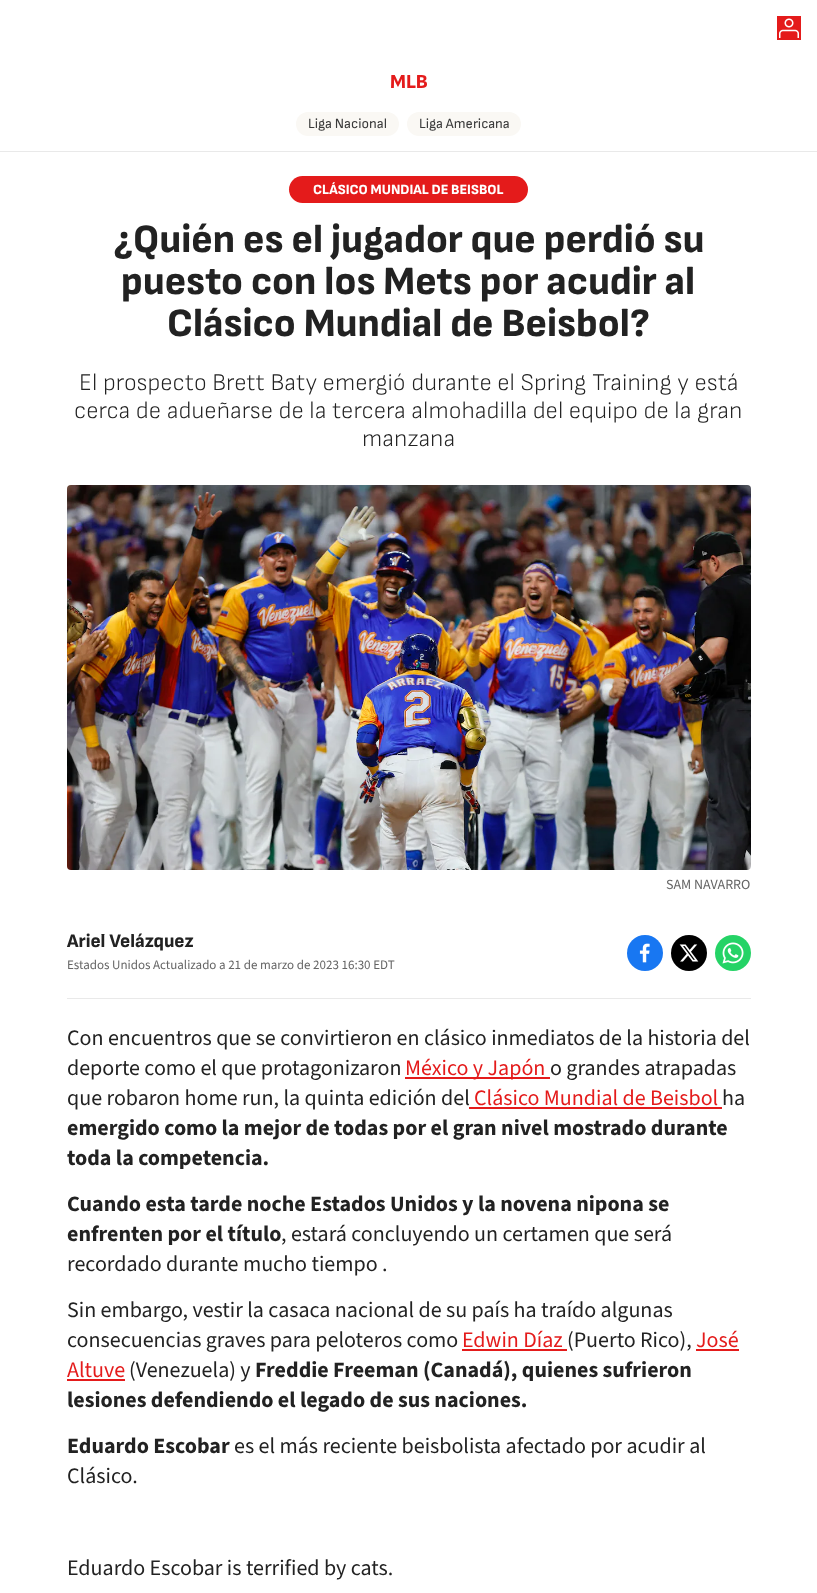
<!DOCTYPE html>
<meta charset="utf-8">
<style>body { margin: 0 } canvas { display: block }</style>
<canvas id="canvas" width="817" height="1593"></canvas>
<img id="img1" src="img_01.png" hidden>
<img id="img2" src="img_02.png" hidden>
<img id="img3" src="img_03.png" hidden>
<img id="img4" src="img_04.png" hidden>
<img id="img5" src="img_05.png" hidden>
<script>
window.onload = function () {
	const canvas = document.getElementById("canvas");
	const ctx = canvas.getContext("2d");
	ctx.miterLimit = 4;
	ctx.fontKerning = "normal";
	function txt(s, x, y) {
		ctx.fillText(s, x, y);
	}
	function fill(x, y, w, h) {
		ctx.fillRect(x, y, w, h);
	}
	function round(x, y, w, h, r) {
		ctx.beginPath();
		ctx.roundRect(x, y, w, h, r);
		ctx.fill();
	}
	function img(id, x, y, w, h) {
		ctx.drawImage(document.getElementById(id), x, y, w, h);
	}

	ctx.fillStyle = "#FFFFFF";
	fill(0, 0, 817, 1593);
	ctx.fillStyle = "#E41B1B";
	fill(777, 16, 24, 24);
	img("img1", 779, 18, 20, 20);
	ctx.fillStyle = "#FAF8F4";
	round(296, 112, 103, 24, 12);
	round(407, 112, 114, 24, 12);
	ctx.fillStyle = "#E9E9E9";
	fill(0, 151, 817, 1);
	ctx.fillStyle = "#E41B1B";
	round(289, 176, 239, 27, 13.5);
	img("img2", 67, 485, 684, 385);
	ctx.fillStyle = "#E9E9E9";
	fill(67, 998, 684, 1);
	ctx.fillStyle = "#1877F2";
	ctx.beginPath();
	ctx.arc(645, 953, 18, 0, Math.PI * 2);
	ctx.fill();
	img("img3", 639, 943, 11, 20);
	ctx.fillStyle = "#000000";
	ctx.beginPath();
	ctx.arc(689, 953, 18, 0, Math.PI * 2);
	ctx.fill();
	img("img4", 679, 944, 20, 18);
	ctx.fillStyle = "#25D366";
	ctx.beginPath();
	ctx.arc(733, 953, 18, 0, Math.PI * 2);
	ctx.fill();
	img("img5", 722, 942, 22, 22);
	ctx.fillStyle = "#E41B1B";
	fill(405, 1077, 145, 2);
	fill(469, 1107, 253, 2);
	fill(462, 1349, 105, 2);
	fill(696, 1349, 43, 2);
	fill(67, 1379, 58, 2);
	ctx.font = "800 20px Sofia Sans";
	txt("MLB", 390, 88);
	ctx.font = "14px Sofia Sans";
	ctx.fillStyle = "#3A3A3A";
	txt("Liga Nacional", 308, 128);
	txt("Liga Americana", 419, 128);
	ctx.font = "800 14px Sofia Sans";
	ctx.fillStyle = "#FFFFFF";
	txt("CLÁSICO MUNDIAL DE BEISBOL", 313, 194);
	ctx.font = "800 40px Sofia Sans";
	ctx.fillStyle = "#222222";
	txt("¿Quién es el jugador que perdió su", 113, 252);
	txt("puesto con los Mets por acudir al", 121, 294);
	txt("Clásico Mundial de Beisbol?", 167, 336);
	ctx.font = "300 24px Sofia Sans";
	txt("El prospecto Brett Baty emergió durante el Spring Training y está", 79, 390);
	txt("cerca de adueñarse de la tercera almohadilla del equipo de la gran", 74, 418);
	txt("manzana", 362, 446);
	ctx.font = "200 14px 'Source Sans 3'";
	ctx.fillStyle = "#656565";
	txt("SAM NAVARRO", 666, 889);
	ctx.font = "800 19px Sofia Sans";
	ctx.fillStyle = "#222222";
	txt("Ariel Velázquez", 67, 947);
	ctx.font = "200 13px 'Source Sans 3'";
	ctx.fillStyle = "#656565";
	txt("Estados Unidos Actualizado a 21 de marzo de 2023 16:30 EDT", 67, 969);
	ctx.font = "200 22px 'Source Sans 3'";
	ctx.fillStyle = "#222222";
	txt("Con encuentros que se convirtieron en clásico inmediatos de la historia del", 67, 1045);
	txt("deporte como el que protagonizaron", 67, 1075);
	ctx.fillStyle = "#E41B1B";
	txt("México y Japón", 405, 1075);
	ctx.fillStyle = "#222222";
	txt("o grandes atrapadas", 550, 1075);
	txt("que robaron home run, la quinta edición del", 67, 1105);
	ctx.fillStyle = "#E41B1B";
	txt("Clásico Mundial de Beisbol", 474, 1105);
	ctx.fillStyle = "#222222";
	txt("ha", 722, 1105);
	ctx.font = "200 22px 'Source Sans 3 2'";
	txt("emergido como la mejor de todas por el gran nivel mostrado durante", 67, 1135);
	txt("toda la competencia.", 67, 1165);
	txt("Cuando esta tarde noche Estados Unidos y la novena nipona se", 67, 1211);
	txt("enfrenten por el título", 67, 1241);
	ctx.font = "200 22px 'Source Sans 3'";
	txt(", estará concluyendo un certamen que será", 281, 1241);
	txt("recordado durante mucho tiempo .", 67, 1271);
	txt("Sin embargo, vestir la casaca nacional de su país ha traído algunas", 67, 1317);
	txt("consecuencias graves para peloteros como", 67, 1347);
	ctx.fillStyle = "#E41B1B";
	txt("Edwin Díaz", 462, 1347);
	ctx.fillStyle = "#222222";
	txt("(Puerto Rico),", 567, 1347);
	ctx.fillStyle = "#E41B1B";
	txt("José", 696, 1347);
	txt("Altuve", 67, 1377);
	ctx.fillStyle = "#222222";
	txt("(Venezuela) y", 129, 1377);
	ctx.font = "200 22px 'Source Sans 3 2'";
	txt("Freddie Freeman (Canadá), quienes sufrieron", 255, 1377);
	txt("lesiones defendiendo el legado de sus naciones.", 67, 1407);
	txt("Eduardo Escobar", 67, 1453);
	ctx.font = "200 22px 'Source Sans 3'";
	txt("es el más reciente beisbolista afectado por acudir al", 234, 1453);
	txt("Clásico.", 67, 1483);
	txt("Eduardo Escobar is terrified by cats.", 67, 1575);
};
</script>
